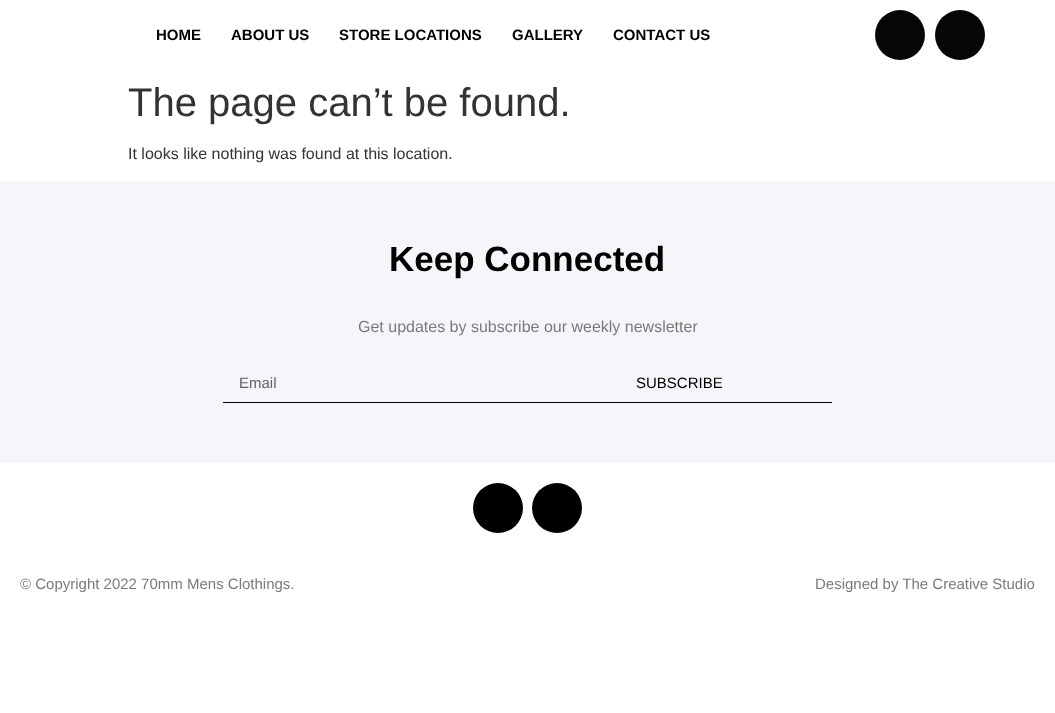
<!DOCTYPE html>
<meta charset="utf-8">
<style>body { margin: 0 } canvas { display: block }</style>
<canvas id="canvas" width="1055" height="713"></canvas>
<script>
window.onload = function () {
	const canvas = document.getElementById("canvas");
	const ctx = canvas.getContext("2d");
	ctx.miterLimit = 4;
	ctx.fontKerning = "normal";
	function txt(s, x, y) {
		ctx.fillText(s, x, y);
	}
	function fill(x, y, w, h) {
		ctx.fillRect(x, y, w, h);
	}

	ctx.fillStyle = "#FFFFFF";
	fill(0, 0, 1055, 713);
	ctx.fillStyle = "#060606";
	ctx.beginPath();
	ctx.arc(900, 35, 25, 0, Math.PI * 2);
	ctx.fill();
	ctx.beginPath();
	ctx.arc(960, 35, 25, 0, Math.PI * 2);
	ctx.fill();
	ctx.fillStyle = "#F4F6F9";
	fill(0, 181, 1055, 282);
	ctx.fillStyle = "#000000";
	fill(223, 402, 609, 1);
	ctx.beginPath();
	ctx.arc(498, 508, 25, 0, Math.PI * 2);
	ctx.fill();
	ctx.beginPath();
	ctx.arc(557, 508, 25, 0, Math.PI * 2);
	ctx.fill();
	ctx.font = "bold 15px Liberation Sans";
	txt("HOME", 156, 40);
	txt("ABOUT US", 231, 40);
	txt("STORE LOCATIONS", 339, 40);
	txt("GALLERY", 512, 40);
	txt("CONTACT US", 613, 40);
	ctx.font = "40px Liberation Sans";
	ctx.fillStyle = "#333333";
	txt("The page can’t be found.", 128, 116);
	ctx.font = "16px Liberation Sans";
	txt("It looks like nothing was found at this location.", 128, 159);
	ctx.font = "bold 35px Liberation Sans";
	ctx.fillStyle = "#000000";
	txt("Keep Connected", 389, 271);
	ctx.font = "16px Liberation Sans";
	ctx.fillStyle = "#7A7A7A";
	txt("Get updates by subscribe our weekly newsletter", 358, 332);
	ctx.font = "15px Liberation Sans";
	ctx.fillStyle = "#626264";
	txt("Email", 239, 388);
	ctx.fillStyle = "#000000";
	txt("SUBSCRIBE", 636, 388);
	ctx.fillStyle = "#7A7A7A";
	txt("© Copyright 2022 70mm Mens Clothings.", 20, 589);
	txt("Designed by The Creative Studio", 815, 589);
};
</script>
